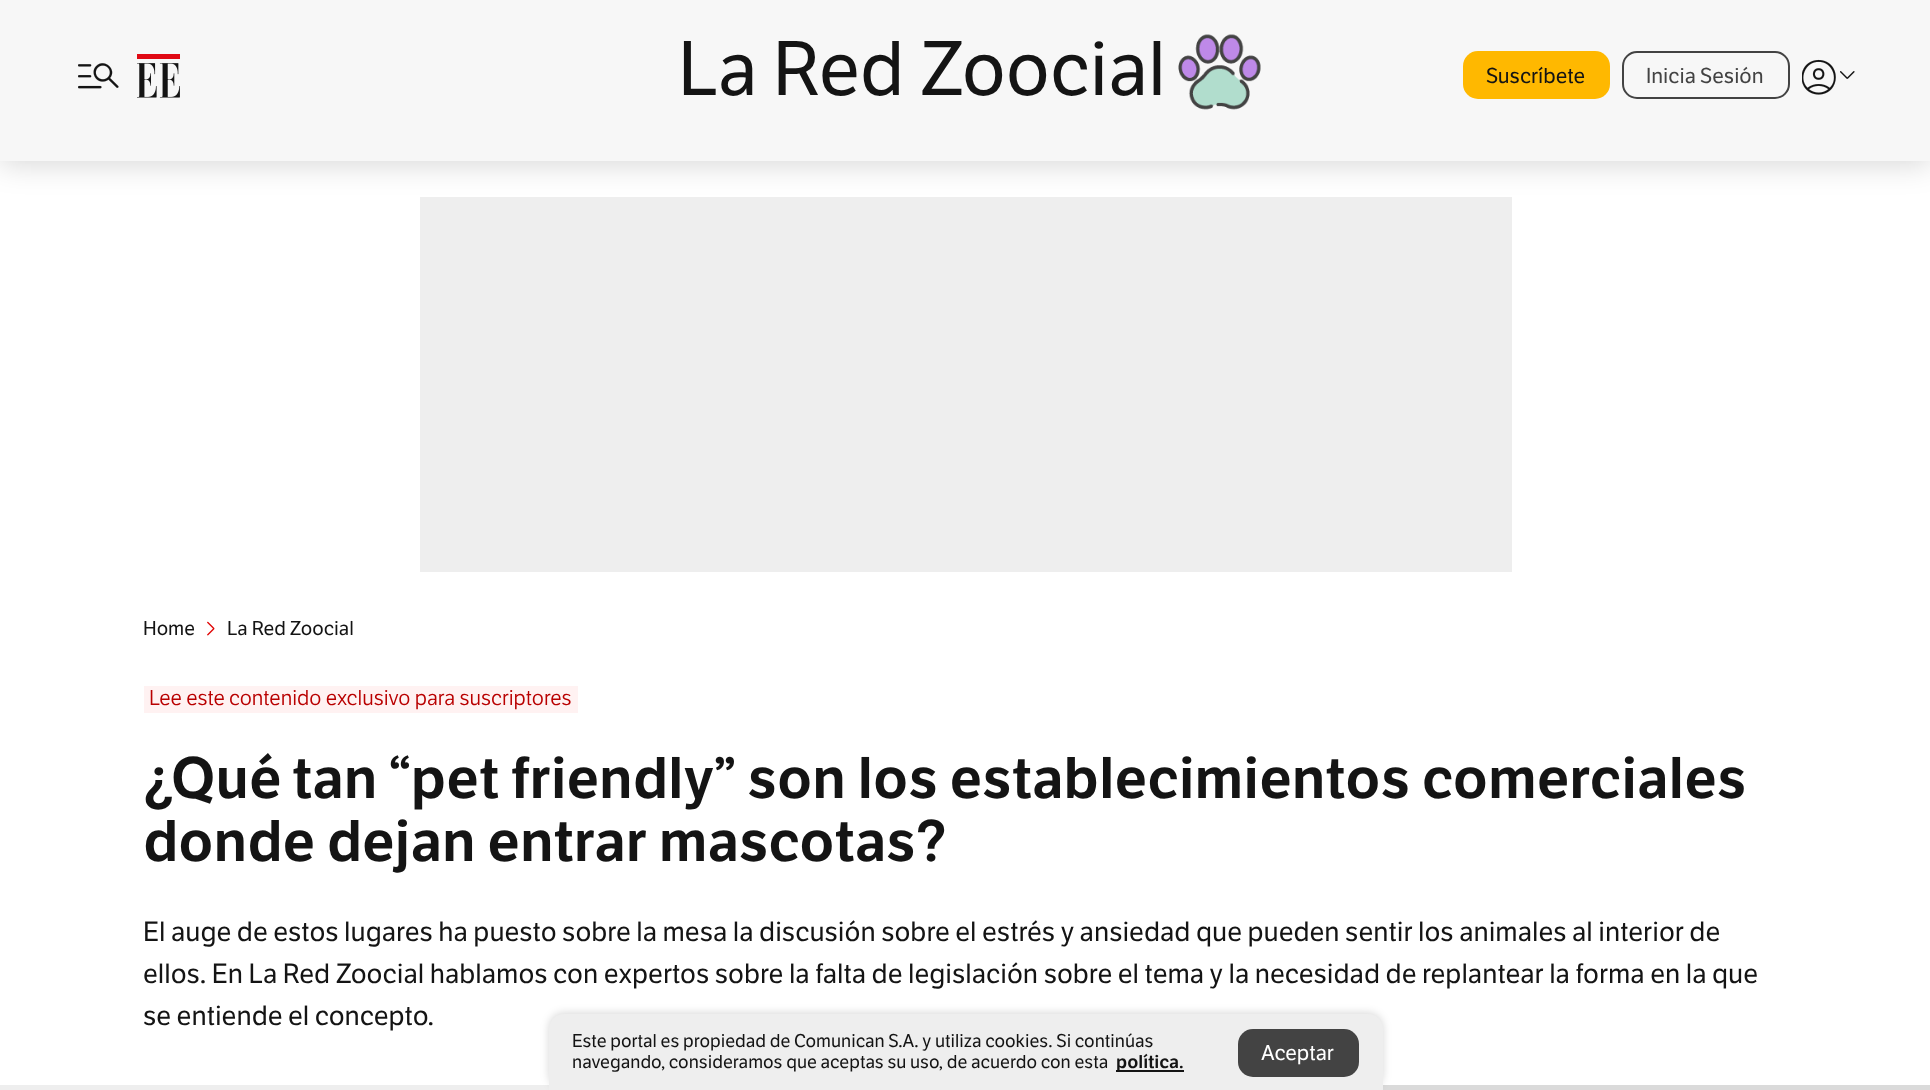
<!DOCTYPE html>
<meta charset="utf-8">
<style>body { margin: 0 } canvas { display: block }</style>
<canvas id="canvas" width="1930" height="1090"></canvas>
<img id="img1" src="img_01.png" hidden>
<img id="img2" src="img_02.png" hidden>
<img id="img3" src="img_03.png" hidden>
<img id="img4" src="img_04.png" hidden>
<img id="img5" src="img_05.png" hidden>
<img id="img6" src="img_06.png" hidden>
<script>
window.onload = function () {
	const canvas = document.getElementById("canvas");
	const ctx = canvas.getContext("2d");
	ctx.miterLimit = 4;
	ctx.fontKerning = "normal";
	function txt(s, x, y) {
		ctx.fillText(s, x, y);
	}
	function fill(x, y, w, h) {
		ctx.fillRect(x, y, w, h);
	}
	function round(x, y, w, h, r) {
		ctx.beginPath();
		ctx.roundRect(x, y, w, h, r);
		ctx.fill();
	}
	function img(id, x, y, w, h) {
		ctx.drawImage(document.getElementById(id), x, y, w, h);
	}
	let gradient;

	ctx.fillStyle = "#FFFFFF";
	fill(0, 0, 1930, 1090);
	ctx.fillStyle = "#EEEEEE";
	fill(420, 197, 1092, 375);
	ctx.fillStyle = "rgba(0, 0, 0, 0.16)";
	ctx.filter = "blur(15px)";
	ctx.beginPath();
	ctx.rect(0, 3, 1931, 161);
	ctx.fill();
	ctx.filter = "none";
	ctx.fillStyle = "#F7F7F7";
	fill(0, 0, 1930, 161);
	img("img1", 78, 63, 41, 26);
	img("img2", 137, 54, 43, 44);
	img("img3", 1178, 34, 83, 76);
	ctx.fillStyle = "#FFB800";
	round(1463, 51, 147, 48, 15);
	ctx.beginPath();
	ctx.roundRect(1623, 52, 166, 46, 14);
	ctx.strokeStyle = "#434343";
	ctx.lineWidth = 2;
	ctx.stroke();
	img("img4", 1802, 59, 34, 36);
	img("img5", 1840, 71, 15, 8);
	img("img6", 207, 621, 8, 15);
	ctx.fillStyle = "#FFF2F2";
	fill(144, 686, 434, 27);
	gradient = ctx.createLinearGradient(0, 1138, 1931, 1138);
	gradient.addColorStop(0.5, "#EEEEEE");
	gradient.addColorStop(0.6, "#DADADA");
	ctx.fillStyle = gradient;
	fill(0, 1085, 1930, 5);
	ctx.fillStyle = "rgba(0, 0, 0, 0.16)";
	ctx.filter = "blur(4.5px)";
	ctx.beginPath();
	ctx.roundRect(549, 1013, 834, 76, 15);
	ctx.fill();
	ctx.filter = "none";
	ctx.fillStyle = "#EEEEEE";
	ctx.beginPath();
	ctx.moveTo(564, 1014);
	ctx.lineTo(1368, 1014);
	ctx.bezierCurveTo(1376.5, 1014, 1383, 1020.5, 1383, 1029);
	ctx.lineTo(1383, 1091);
	ctx.lineTo(549, 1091);
	ctx.lineTo(549, 1029);
	ctx.bezierCurveTo(549, 1020.5, 555.5, 1014, 564, 1014);
	ctx.closePath();
	ctx.fill();
	ctx.fillStyle = "#141414";
	fill(1116, 1070, 68, 2);
	ctx.fillStyle = "#434343";
	round(1238, 1029, 121, 48, 15);
	ctx.font = "75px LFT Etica";
	ctx.fillStyle = "#141414";
	txt("La Red Zoocial", 678, 95);
	ctx.font = "21px LFT Etica";
	txt("Suscríbete", 1486, 83);
	ctx.fillStyle = "#434343";
	txt("Inicia Sesión", 1646, 83);
	ctx.font = "19.5px LFT Etica";
	ctx.fillStyle = "#141414";
	txt("Home", 143, 635);
	txt("La Red Zoocial", 227, 635);
	ctx.font = "21px 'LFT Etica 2'";
	ctx.fillStyle = "#B90000";
	txt("Lee este contenido exclusivo para suscriptores", 149, 705);
	ctx.font = "600 57px LFT Etica";
	ctx.fillStyle = "#141414";
	txt("¿Qué tan “pet friendly” son los establecimientos comerciales", 143, 798);
	txt("donde dejan entrar mascotas?", 143, 861);
	ctx.font = "27px LFT Etica";
	txt("El auge de estos lugares ha puesto sobre la mesa la discusión sobre el estrés y ansiedad que pueden sentir los animales al interior de", 143, 941);
	txt("ellos. En La Red Zoocial hablamos con expertos sobre la falta de legislación sobre el tema y la necesidad de replantear la forma en la que", 143, 983);
	txt("se entiende el concepto.", 143, 1025);
	ctx.font = "18px LFT Etica";
	txt("Este portal es propiedad de Comunican S.A. y utiliza cookies. Si continúas", 572, 1047);
	txt("navegando, consideramos que aceptas su uso, de acuerdo con esta", 572, 1068);
	ctx.font = "600 18px LFT Etica";
	txt("política.", 1116, 1068);
	ctx.font = "21px LFT Etica";
	ctx.fillStyle = "#FFFFFF";
	txt("Aceptar", 1261, 1060);
};
</script>
